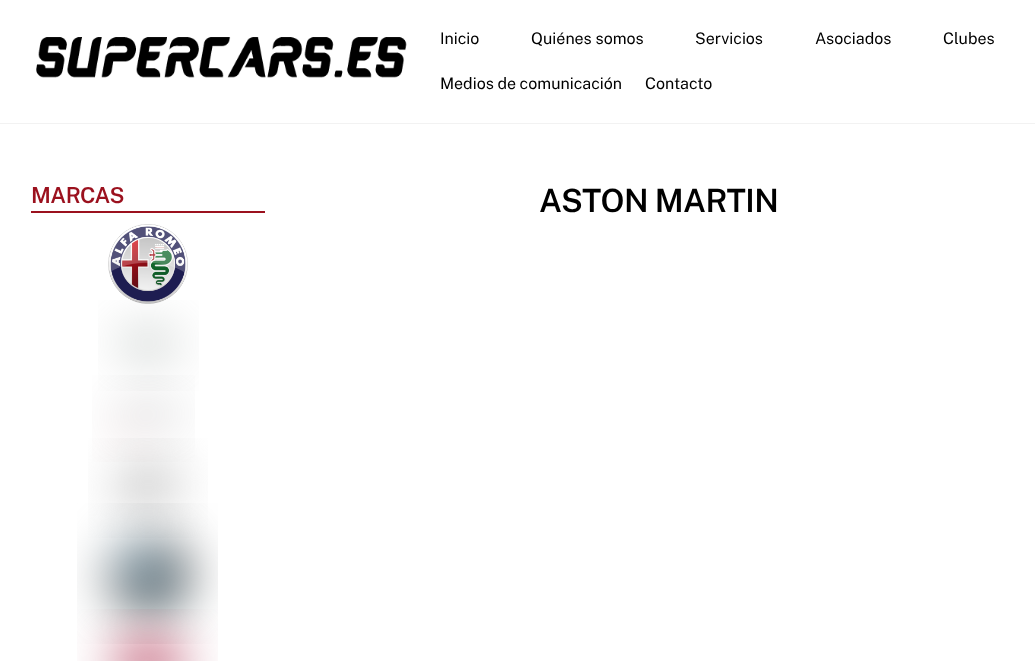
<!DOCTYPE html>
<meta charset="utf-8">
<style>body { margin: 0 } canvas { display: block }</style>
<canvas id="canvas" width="1035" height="661"></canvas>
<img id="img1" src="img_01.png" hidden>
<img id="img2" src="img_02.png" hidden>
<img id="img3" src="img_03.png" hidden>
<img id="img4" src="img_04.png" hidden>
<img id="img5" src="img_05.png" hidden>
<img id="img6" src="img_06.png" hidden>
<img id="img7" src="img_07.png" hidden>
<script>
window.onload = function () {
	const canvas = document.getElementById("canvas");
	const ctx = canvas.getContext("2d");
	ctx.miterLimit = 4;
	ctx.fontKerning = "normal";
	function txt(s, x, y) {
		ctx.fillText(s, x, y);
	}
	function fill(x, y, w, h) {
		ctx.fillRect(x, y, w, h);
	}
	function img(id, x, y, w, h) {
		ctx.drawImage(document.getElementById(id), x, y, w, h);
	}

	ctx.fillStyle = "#FFFFFF";
	fill(0, 0, 1035, 661);
	ctx.fillStyle = "#F2F2F2";
	fill(0, 123, 1035, 1);
	img("img1", 36, 37, 371, 41);
	ctx.fillStyle = "#9B111E";
	fill(31, 211, 234, 2);
	img("img2", 108, 224, 80, 80);
	img("img3", 98, 300, 101, 91);
	img("img4", 92, 375, 103, 87);
	img("img5", 88, 438, 120, 100);
	img("img6", 77, 503, 141, 141);
	img("img7", 77, 609, 141, 52);
	ctx.font = "16px Public Sans";
	ctx.fillStyle = "#000000";
	txt("Inicio", 440, 44);
	txt("Quiénes somos", 531, 44);
	txt("Servicios", 695, 44);
	txt("Asociados", 815, 44);
	txt("Clubes", 943, 44);
	txt("Medios de comunicación", 440, 89);
	txt("Contacto", 645, 89);
	ctx.letterSpacing = "-0.5px";
	ctx.font = "600 22px Public Sans";
	ctx.fillStyle = "#9B111E";
	txt("MARCAS", 31, 203);
	ctx.letterSpacing = "-0.6px";
	ctx.font = "600 32px Public Sans";
	ctx.fillStyle = "#000000";
	txt("ASTON MARTIN", 539, 212);
};
</script>
